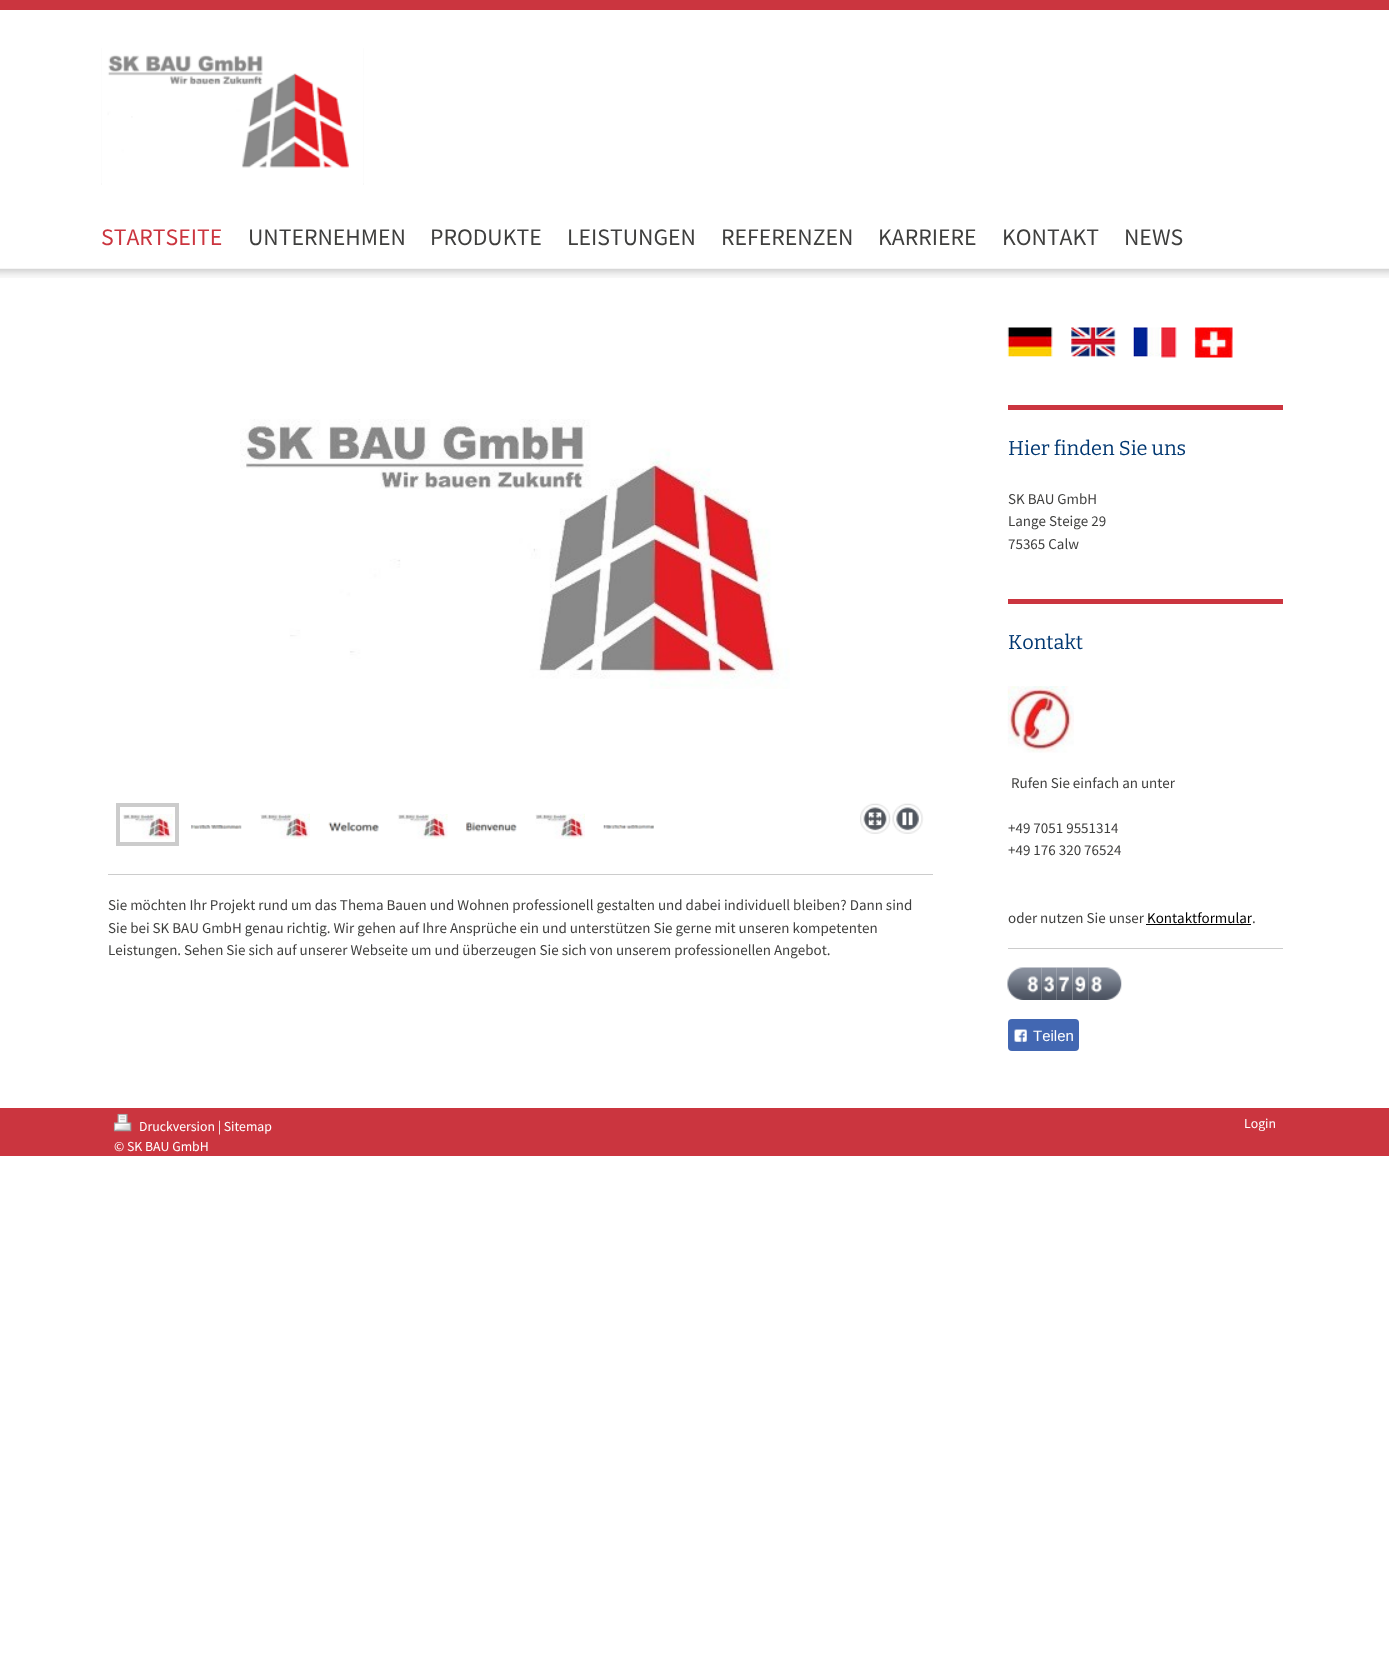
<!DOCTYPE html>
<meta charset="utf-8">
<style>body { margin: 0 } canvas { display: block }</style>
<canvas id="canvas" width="1389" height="1670"></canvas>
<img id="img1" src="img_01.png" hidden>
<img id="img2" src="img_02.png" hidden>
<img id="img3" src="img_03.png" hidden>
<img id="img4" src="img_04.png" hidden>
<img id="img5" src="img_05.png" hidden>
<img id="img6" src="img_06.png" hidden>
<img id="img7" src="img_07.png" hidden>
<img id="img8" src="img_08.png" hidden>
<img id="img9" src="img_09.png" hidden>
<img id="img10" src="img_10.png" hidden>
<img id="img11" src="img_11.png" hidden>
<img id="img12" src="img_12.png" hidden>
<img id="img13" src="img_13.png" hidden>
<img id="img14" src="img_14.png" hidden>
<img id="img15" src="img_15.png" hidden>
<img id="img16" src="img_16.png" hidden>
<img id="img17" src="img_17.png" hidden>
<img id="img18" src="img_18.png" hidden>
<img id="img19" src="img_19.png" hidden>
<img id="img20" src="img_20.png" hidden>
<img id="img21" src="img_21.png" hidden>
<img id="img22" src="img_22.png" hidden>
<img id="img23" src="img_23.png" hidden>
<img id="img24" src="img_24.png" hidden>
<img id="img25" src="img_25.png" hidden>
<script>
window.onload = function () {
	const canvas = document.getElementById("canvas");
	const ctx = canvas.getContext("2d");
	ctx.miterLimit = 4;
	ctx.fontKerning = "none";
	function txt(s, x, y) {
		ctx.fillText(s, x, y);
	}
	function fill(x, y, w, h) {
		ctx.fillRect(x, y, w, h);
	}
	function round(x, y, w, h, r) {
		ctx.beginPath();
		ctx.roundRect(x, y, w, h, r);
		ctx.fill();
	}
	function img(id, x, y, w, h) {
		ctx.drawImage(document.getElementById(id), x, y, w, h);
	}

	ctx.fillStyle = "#FFFFFF";
	fill(0, 0, 1389, 1670);
	ctx.fillStyle = "#CB353F";
	fill(0, 0, 1389, 10);
	ctx.fillStyle = "#EEEEEE";
	fill(101, 48, 263, 137);
	img("img1", 101, 48, 263, 137);
	ctx.fillStyle = "rgba(255, 255, 255, 0.42)";
	fill(101, 75, 263, 25);
	img("img2", 101, 48, 263, 135);
	img("img3", 0, 268, 1389, 10);
	img("img4", 240, 419, 550, 270);
	ctx.strokeStyle = "#CCCCCC";
	ctx.lineWidth = 4;
	ctx.strokeRect(118, 805, 59, 39);
	img("img5", 122, 814, 51, 25);
	img("img6", 191, 825, 51, 4);
	img("img7", 260, 813, 50, 26);
	img("img8", 328, 822, 51, 10);
	img("img9", 397, 814, 51, 25);
	img("img10", 466, 822, 51, 10);
	img("img11", 535, 813, 50, 26);
	img("img12", 603, 825, 51, 4);
	img("img13", 860, 803, 31, 31);
	img("img14", 892, 803, 32, 31);
	ctx.fillStyle = "#CCCCCC";
	fill(108, 874, 825, 1);
	img("img15", 1007, 327, 226, 31);
	ctx.fillStyle = "#CB353F";
	fill(1008, 405, 275, 5);
	fill(1008, 599, 275, 5);
	img("img16", 1007, 686, 67, 67);
	ctx.fillStyle = "#000000";
	fill(1146, 924, 105, 1);
	ctx.fillStyle = "#CCCCCC";
	fill(1008, 948, 275, 1);
	img("img17", 1007, 967, 18, 33);
	img("img18", 1025, 967, 17, 33);
	img("img19", 1041, 967, 16, 33);
	img("img20", 1056, 967, 17, 33);
	img("img21", 1072, 967, 17, 33);
	img("img22", 1088, 967, 17, 33);
	img("img23", 1105, 967, 17, 33);
	ctx.fillStyle = "#4267B2";
	round(1008, 1019, 71, 32, 4);
	img("img24", 1014, 1029, 13, 13);
	ctx.fillStyle = "#CB353F";
	fill(0, 1108, 1389, 48);
	img("img25", 113, 1113, 19, 19);
	ctx.font = "23.75px Source Sans Pro";
	txt("STARTSEITE", 101, 245);
	ctx.fillStyle = "#3F3F3E";
	txt("UNTERNEHMEN", 248, 245);
	txt("PRODUKTE", 430, 245);
	txt("LEISTUNGEN", 567, 245);
	txt("REFERENZEN", 721, 245);
	txt("KARRIERE", 878, 245);
	txt("KONTAKT", 1002, 245);
	txt("NEWS", 1124, 245);
	ctx.font = "15px Source Sans Pro";
	txt("Sie möchten Ihr Projekt rund um das Thema Bauen und Wohnen professionell gestalten und dabei individuell bleiben? Dann sind", 108, 910);
	txt("Sie bei SK BAU GmbH genau richtig. Wir gehen auf Ihre Ansprüche ein und unterstützen Sie gerne mit unseren kompetenten", 108, 933);
	txt("Leistungen. Sehen Sie sich auf unserer Webseite um und überzeugen Sie sich von unserem professionellen Angebot.", 108, 955);
	ctx.font = "20px Bitter";
	ctx.fillStyle = "#003771";
	txt("Hier finden Sie uns", 1008, 455);
	ctx.font = "15px Source Sans Pro";
	ctx.fillStyle = "#3F3F3E";
	txt("SK BAU GmbH", 1008, 504);
	txt("Lange Steige 29", 1008, 526);
	txt("75365 Calw", 1008, 549);
	ctx.font = "20px Bitter";
	ctx.fillStyle = "#003771";
	txt("Kontakt", 1008, 649);
	ctx.font = "15px Source Sans Pro";
	ctx.fillStyle = "#3F3F3E";
	txt("Rufen Sie einfach an unter", 1011, 788);
	txt("+49 7051 9551314", 1008, 833);
	txt("+49 176 320 76524", 1008, 855);
	txt("oder nutzen Sie unser", 1008, 923);
	ctx.fillStyle = "#000000";
	txt("Kontaktformular", 1147, 923);
	ctx.fillStyle = "#3F3F3E";
	txt(".", 1252, 923);
	ctx.font = "15px Liberation Sans";
	ctx.fillStyle = "#FFFFFF";
	txt("Teilen", 1033, 1041);
	ctx.font = "13.75px Source Sans Pro";
	txt("Druckversion | Sitemap", 139, 1131);
	txt("© SK BAU GmbH", 114, 1151);
	txt("Login", 1244, 1128);
};
</script>
